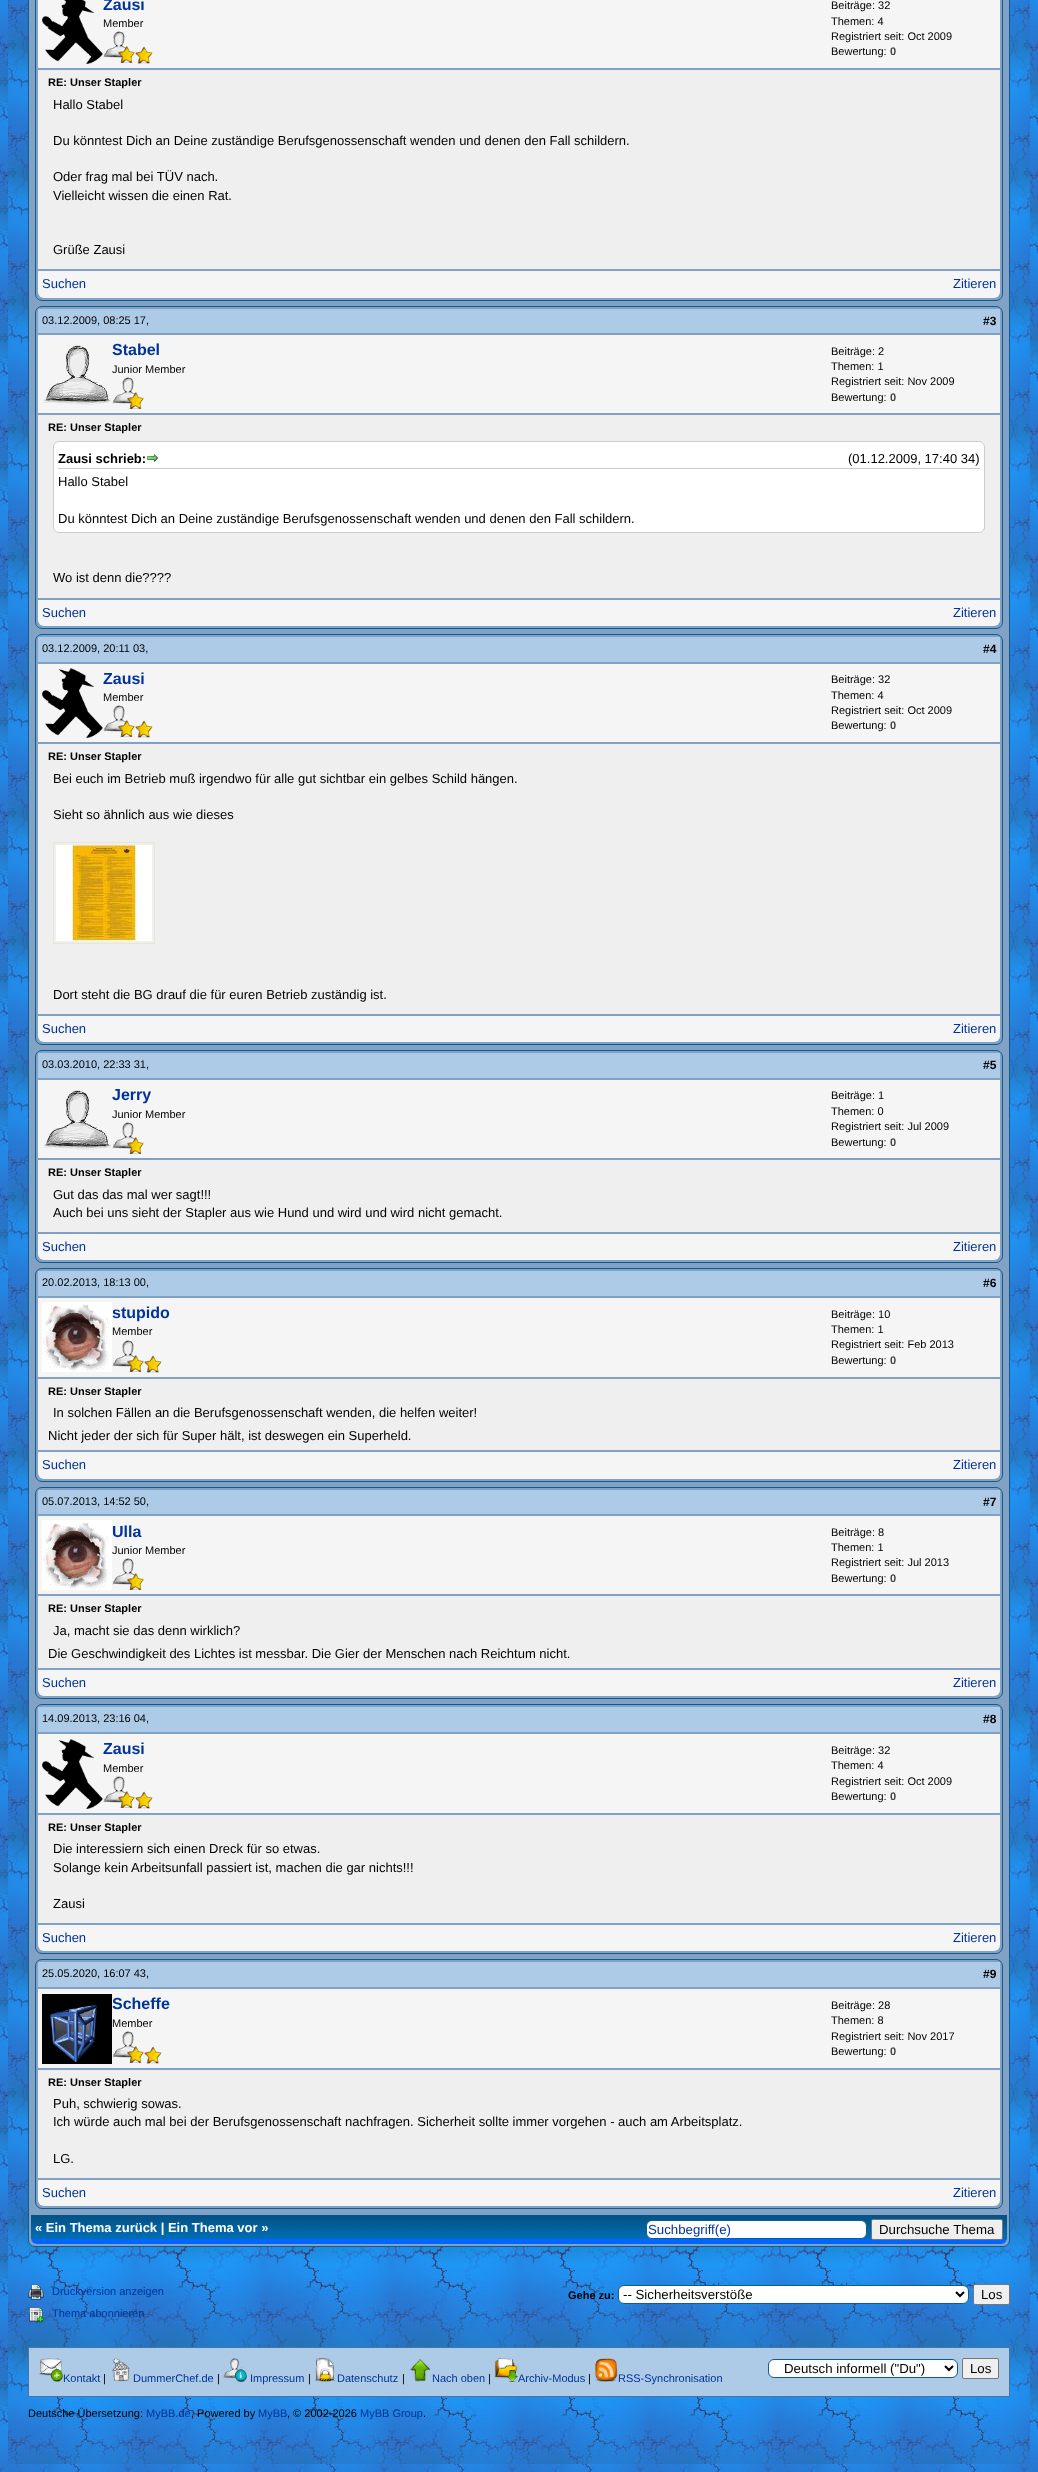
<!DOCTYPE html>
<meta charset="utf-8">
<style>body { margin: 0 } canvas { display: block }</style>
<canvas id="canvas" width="1038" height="2472"></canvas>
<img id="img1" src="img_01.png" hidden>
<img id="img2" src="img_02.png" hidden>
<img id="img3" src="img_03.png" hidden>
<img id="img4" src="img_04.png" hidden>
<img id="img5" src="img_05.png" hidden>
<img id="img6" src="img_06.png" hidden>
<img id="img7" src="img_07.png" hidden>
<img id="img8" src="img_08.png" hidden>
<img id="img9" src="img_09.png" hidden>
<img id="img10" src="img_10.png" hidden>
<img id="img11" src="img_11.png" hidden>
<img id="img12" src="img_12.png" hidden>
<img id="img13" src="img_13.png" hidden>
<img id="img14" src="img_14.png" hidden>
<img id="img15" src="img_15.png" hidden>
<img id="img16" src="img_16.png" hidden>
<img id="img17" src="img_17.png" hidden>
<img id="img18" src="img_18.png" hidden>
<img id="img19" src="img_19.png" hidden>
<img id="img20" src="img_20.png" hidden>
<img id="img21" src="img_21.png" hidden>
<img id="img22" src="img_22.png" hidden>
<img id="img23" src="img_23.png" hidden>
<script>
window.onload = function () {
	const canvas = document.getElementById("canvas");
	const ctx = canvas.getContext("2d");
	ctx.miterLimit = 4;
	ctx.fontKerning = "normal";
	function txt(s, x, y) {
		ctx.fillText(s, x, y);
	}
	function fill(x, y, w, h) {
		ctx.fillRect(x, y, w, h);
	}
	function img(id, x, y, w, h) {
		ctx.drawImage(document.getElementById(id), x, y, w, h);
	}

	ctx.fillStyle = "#FFFFFF";
	fill(0, 0, 1038, 2472);
	img("img1", 0, 0, 1038, 2472);
	img("img2", 8, 0, 1022, 2464);
	ctx.fillStyle = "#81A2C4";
	ctx.beginPath();
	ctx.roundRect(28.5, -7.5, 981, 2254, 6.5);
	ctx.fill();
	ctx.strokeStyle = "#0F5C8E";
	ctx.stroke();
	ctx.beginPath();
	ctx.roundRect(35.5, -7.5, 967, 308, 6.5);
	ctx.stroke();
	ctx.fillStyle = "#F5F5F5";
	fill(38, 0, 962, 68);
	img("img3", 42, 0, 61, 64);
	img("img4", 103, 31, 50, 33);
	ctx.fillStyle = "#EFEFEF";
	fill(38, 70, 962, 199);
	ctx.fillStyle = "#F5F5F5";
	ctx.beginPath();
	ctx.roundRect(38, 271, 962, 27, [0, 0, 6, 6]);
	ctx.fill();
	ctx.beginPath();
	ctx.roundRect(35.5, 306.5, 967, 322, 6.5);
	ctx.stroke();
	ctx.fillStyle = "#ADCBE7";
	fill(38, 309, 962, 24);
	ctx.fillStyle = "#F5F5F5";
	fill(38, 335, 962, 78);
	img("img5", 43, 345, 68, 60);
	img("img6", 112, 377, 32, 32);
	ctx.fillStyle = "#EFEFEF";
	fill(38, 415, 962, 183);
	ctx.fillStyle = "#FFFFFF";
	ctx.beginPath();
	ctx.roundRect(53.5, 441.5, 931, 91, 5.5);
	ctx.fill();
	ctx.strokeStyle = "#CCCCCC";
	ctx.stroke();
	ctx.fillStyle = "#CCCCCC";
	fill(58, 468, 922, 1);
	img("img7", 147, 454, 11, 8);
	ctx.fillStyle = "#F5F5F5";
	ctx.beginPath();
	ctx.roundRect(38, 600, 962, 26, [0, 0, 6, 6]);
	ctx.fill();
	ctx.beginPath();
	ctx.roundRect(35.5, 634.5, 967, 410, 6.5);
	ctx.strokeStyle = "#0F5C8E";
	ctx.stroke();
	ctx.fillStyle = "#ADCBE7";
	fill(38, 637, 962, 25);
	ctx.fillStyle = "#F5F5F5";
	fill(38, 664, 962, 78);
	img("img8", 42, 668, 61, 70);
	img("img4", 103, 705, 50, 33);
	ctx.fillStyle = "#EFEFEF";
	fill(38, 744, 962, 270);
	ctx.strokeStyle = "#E9E5D7";
	ctx.strokeRect(53.5, 842.5, 101, 101);
	img("img9", 56, 845, 96, 96);
	ctx.fillStyle = "#F5F5F5";
	ctx.beginPath();
	ctx.roundRect(38, 1016, 962, 26, [0, 0, 6, 6]);
	ctx.fill();
	ctx.beginPath();
	ctx.roundRect(35.5, 1050.5, 967, 212, 6.5);
	ctx.strokeStyle = "#0F5C8E";
	ctx.stroke();
	ctx.fillStyle = "#ADCBE7";
	fill(38, 1053, 962, 25);
	ctx.fillStyle = "#F5F5F5";
	fill(38, 1080, 962, 78);
	img("img10", 43, 1090, 68, 60);
	img("img6", 112, 1122, 32, 32);
	ctx.fillStyle = "#EFEFEF";
	fill(38, 1160, 962, 72);
	ctx.fillStyle = "#F5F5F5";
	ctx.beginPath();
	ctx.roundRect(38, 1234, 962, 26, [0, 0, 6, 6]);
	ctx.fill();
	ctx.beginPath();
	ctx.roundRect(35.5, 1268.5, 967, 213, 6.5);
	ctx.stroke();
	ctx.fillStyle = "#ADCBE7";
	fill(38, 1271, 962, 25);
	ctx.fillStyle = "#F5F5F5";
	fill(38, 1298, 962, 79);
	img("img11", 42, 1302, 70, 70);
	img("img4", 112, 1340, 50, 33);
	ctx.fillStyle = "#EFEFEF";
	fill(38, 1379, 962, 71);
	ctx.fillStyle = "#F5F5F5";
	ctx.beginPath();
	ctx.roundRect(38, 1452, 962, 27, [0, 0, 6, 6]);
	ctx.fill();
	ctx.beginPath();
	ctx.roundRect(35.5, 1487.5, 967, 211, 6.5);
	ctx.stroke();
	ctx.fillStyle = "#ADCBE7";
	fill(38, 1490, 962, 24);
	ctx.fillStyle = "#F5F5F5";
	fill(38, 1516, 962, 78);
	img("img11", 42, 1520, 70, 70);
	img("img6", 112, 1558, 32, 32);
	ctx.fillStyle = "#EFEFEF";
	fill(38, 1596, 962, 72);
	ctx.fillStyle = "#F5F5F5";
	ctx.beginPath();
	ctx.roundRect(38, 1670, 962, 26, [0, 0, 6, 6]);
	ctx.fill();
	ctx.beginPath();
	ctx.roundRect(35.5, 1704.5, 967, 249, 6.5);
	ctx.stroke();
	ctx.fillStyle = "#ADCBE7";
	fill(38, 1707, 962, 25);
	ctx.fillStyle = "#F5F5F5";
	fill(38, 1734, 962, 79);
	img("img12", 42, 1739, 61, 70);
	img("img4", 103, 1776, 50, 33);
	ctx.fillStyle = "#EFEFEF";
	fill(38, 1815, 962, 108);
	ctx.fillStyle = "#F5F5F5";
	ctx.beginPath();
	ctx.roundRect(38, 1925, 962, 26, [0, 0, 6, 6]);
	ctx.fill();
	ctx.beginPath();
	ctx.roundRect(35.5, 1959.5, 967, 249, 6.5);
	ctx.stroke();
	ctx.fillStyle = "#ADCBE7";
	fill(38, 1962, 962, 25);
	ctx.fillStyle = "#F5F5F5";
	fill(38, 1989, 962, 79);
	img("img13", 42, 1994, 70, 70);
	img("img4", 112, 2031, 50, 33);
	ctx.fillStyle = "#EFEFEF";
	fill(38, 2070, 962, 108);
	ctx.fillStyle = "#F5F5F5";
	ctx.beginPath();
	ctx.roundRect(38, 2180, 962, 26, [0, 0, 6, 6]);
	ctx.fill();
	ctx.fillStyle = "#0066FF";
	ctx.beginPath();
	ctx.roundRect(31, 2215, 976, 29, [0, 0, 6, 6]);
	ctx.fill();
	img("img14", 31, 2215, 976, 24);
	ctx.fillStyle = "#FFFFFF";
	ctx.beginPath();
	ctx.roundRect(646.5, 2220.5, 220, 18, 5.5);
	ctx.fill();
	ctx.stroke();
	ctx.fillStyle = "#EFEFEF";
	ctx.beginPath();
	ctx.roundRect(871.5, 2219.5, 131, 20, 1.5);
	ctx.fill();
	ctx.strokeStyle = "#767676";
	ctx.stroke();
	img("img15", 28, 2284, 16, 16);
	img("img16", 29, 2307, 15, 16);
	ctx.fillStyle = "#FFFFFF";
	ctx.beginPath();
	ctx.roundRect(618.5, 2285.5, 350, 18, 5.5);
	ctx.fill();
	ctx.strokeStyle = "#0F5C8E";
	ctx.stroke();
	ctx.beginPath();
	ctx.moveTo(956, 2292);
	ctx.lineTo(960, 2296);
	ctx.lineTo(964, 2292);
	ctx.strokeStyle = "#000000";
	ctx.lineWidth = 2;
	ctx.stroke();
	ctx.fillStyle = "#EFEFEF";
	ctx.beginPath();
	ctx.roundRect(973.5, 2284.5, 36, 20, 1.5);
	ctx.fill();
	ctx.strokeStyle = "#767676";
	ctx.lineWidth = 1;
	ctx.stroke();
	ctx.fillStyle = "#ADCBE7";
	ctx.beginPath();
	ctx.rect(28.5, 2347.5, 981, 49);
	ctx.fill();
	ctx.strokeStyle = "#4874A3";
	ctx.stroke();
	ctx.fillStyle = "#FFFFFF";
	ctx.beginPath();
	ctx.roundRect(768.5, 2359.5, 189, 18, 5.5);
	ctx.fill();
	ctx.strokeStyle = "#0F5C8E";
	ctx.stroke();
	ctx.beginPath();
	ctx.moveTo(945, 2366);
	ctx.lineTo(949, 2370);
	ctx.lineTo(953, 2366);
	ctx.strokeStyle = "#000000";
	ctx.lineWidth = 2;
	ctx.stroke();
	ctx.fillStyle = "#EFEFEF";
	ctx.beginPath();
	ctx.roundRect(962.5, 2358.5, 36, 20, 1.5);
	ctx.fill();
	ctx.strokeStyle = "#767676";
	ctx.lineWidth = 1;
	ctx.stroke();
	img("img17", 39, 2358, 24, 24);
	img("img18", 112, 2358, 18, 24);
	img("img19", 223, 2358, 24, 24);
	img("img20", 314, 2358, 22, 24);
	img("img21", 410, 2359, 21, 23);
	img("img22", 494, 2358, 24, 24);
	img("img23", 595, 2358, 23, 24);
	ctx.font = "bold 16px Liberation Sans";
	ctx.fillStyle = "#003399";
	txt("Zausi", 103, 10);
	ctx.font = "11px Liberation Sans";
	ctx.fillStyle = "#000000";
	txt("Member", 103, 27);
	txt("Beiträge: 32", 831, 9);
	txt("Themen: 4", 831, 25);
	txt("Registriert seit: Oct 2009", 831, 40);
	txt("Bewertung:", 831, 55);
	ctx.font = "bold 11px Liberation Sans";
	ctx.fillStyle = "#444444";
	txt("0", 890, 55);
	ctx.fillStyle = "#000000";
	txt("RE: Unser Stapler", 48, 86);
	ctx.font = "13px Liberation Sans";
	txt("Hallo Stabel", 53, 109);
	txt("Du könntest Dich an Deine zuständige Berufsgenossenschaft wenden und denen den Fall schildern.", 53, 145);
	txt("Oder frag mal bei TÜV nach.", 53, 181);
	txt("Vielleicht wissen die einen Rat.", 53, 200);
	txt("Grüße Zausi", 53, 254);
	ctx.fillStyle = "#003399";
	txt("Suchen", 42, 288);
	txt("Zitieren", 953, 288);
	ctx.font = "11px Liberation Sans";
	ctx.fillStyle = "#000000";
	txt("03.12.2009, 08:25 17,", 42, 324);
	ctx.font = "bold 12px Liberation Sans";
	txt("#3", 983, 325);
	ctx.font = "bold 16px Liberation Sans";
	ctx.fillStyle = "#003399";
	txt("Stabel", 112, 355);
	ctx.font = "11px Liberation Sans";
	ctx.fillStyle = "#000000";
	txt("Junior Member", 112, 373);
	txt("Beiträge: 2", 831, 355);
	txt("Themen: 1", 831, 370);
	txt("Registriert seit: Nov 2009", 831, 385);
	txt("Bewertung:", 831, 401);
	ctx.font = "bold 11px Liberation Sans";
	ctx.fillStyle = "#444444";
	txt("0", 890, 401);
	ctx.fillStyle = "#000000";
	txt("RE: Unser Stapler", 48, 431);
	ctx.font = "bold 13px Liberation Sans";
	txt("Zausi schrieb:", 58, 463);
	ctx.font = "13px Liberation Sans";
	txt("(01.12.2009, 17:40 34)", 848, 463);
	txt("Hallo Stabel", 58, 486);
	txt("Du könntest Dich an Deine zuständige Berufsgenossenschaft wenden und denen den Fall schildern.", 58, 523);
	txt("Wo ist denn die????", 53, 582);
	ctx.fillStyle = "#003399";
	txt("Suchen", 42, 617);
	txt("Zitieren", 953, 617);
	ctx.font = "11px Liberation Sans";
	ctx.fillStyle = "#000000";
	txt("03.12.2009, 20:11 03,", 42, 652);
	ctx.font = "bold 12px Liberation Sans";
	txt("#4", 983, 653);
	ctx.font = "bold 16px Liberation Sans";
	ctx.fillStyle = "#003399";
	txt("Zausi", 103, 684);
	ctx.font = "11px Liberation Sans";
	ctx.fillStyle = "#000000";
	txt("Member", 103, 701);
	txt("Beiträge: 32", 831, 683);
	txt("Themen: 4", 831, 699);
	txt("Registriert seit: Oct 2009", 831, 714);
	txt("Bewertung:", 831, 729);
	ctx.font = "bold 11px Liberation Sans";
	ctx.fillStyle = "#444444";
	txt("0", 890, 729);
	ctx.fillStyle = "#000000";
	txt("RE: Unser Stapler", 48, 760);
	ctx.font = "13px Liberation Sans";
	txt("Bei euch im Betrieb muß irgendwo für alle gut sichtbar ein gelbes Schild hängen.", 53, 783);
	txt("Sieht so ähnlich aus wie dieses", 53, 819);
	txt("Dort steht die BG drauf die für euren Betrieb zuständig ist.", 53, 999);
	ctx.fillStyle = "#003399";
	txt("Suchen", 42, 1033);
	txt("Zitieren", 953, 1033);
	ctx.font = "11px Liberation Sans";
	ctx.fillStyle = "#000000";
	txt("03.03.2010, 22:33 31,", 42, 1068);
	ctx.font = "bold 12px Liberation Sans";
	txt("#5", 983, 1069);
	ctx.font = "bold 16px Liberation Sans";
	ctx.fillStyle = "#003399";
	txt("Jerry", 112, 1100);
	ctx.font = "11px Liberation Sans";
	ctx.fillStyle = "#000000";
	txt("Junior Member", 112, 1118);
	txt("Beiträge: 1", 831, 1099);
	txt("Themen: 0", 831, 1115);
	txt("Registriert seit: Jul 2009", 831, 1130);
	txt("Bewertung:", 831, 1146);
	ctx.font = "bold 11px Liberation Sans";
	ctx.fillStyle = "#444444";
	txt("0", 890, 1146);
	ctx.fillStyle = "#000000";
	txt("RE: Unser Stapler", 48, 1176);
	ctx.font = "13px Liberation Sans";
	txt("Gut das das mal wer sagt!!!", 53, 1199);
	txt("Auch bei uns sieht der Stapler aus wie Hund und wird und wird nicht gemacht.", 53, 1217);
	ctx.fillStyle = "#003399";
	txt("Suchen", 42, 1251);
	txt("Zitieren", 953, 1251);
	ctx.font = "11px Liberation Sans";
	ctx.fillStyle = "#000000";
	txt("20.02.2013, 18:13 00,", 42, 1286);
	ctx.font = "bold 12px Liberation Sans";
	txt("#6", 983, 1287);
	ctx.font = "bold 16px Liberation Sans";
	ctx.fillStyle = "#003399";
	txt("stupido", 112, 1318);
	ctx.font = "11px Liberation Sans";
	ctx.fillStyle = "#000000";
	txt("Member", 112, 1335);
	txt("Beiträge: 10", 831, 1318);
	txt("Themen: 1", 831, 1333);
	txt("Registriert seit: Feb 2013", 831, 1348);
	txt("Bewertung:", 831, 1364);
	ctx.font = "bold 11px Liberation Sans";
	ctx.fillStyle = "#444444";
	txt("0", 890, 1364);
	ctx.fillStyle = "#000000";
	txt("RE: Unser Stapler", 48, 1395);
	ctx.font = "13px Liberation Sans";
	txt("In solchen Fällen an die Berufsgenossenschaft wenden, die helfen weiter!", 53, 1417);
	txt("Nicht jeder der sich für Super hält, ist deswegen ein Superheld.", 48, 1440);
	ctx.fillStyle = "#003399";
	txt("Suchen", 42, 1469);
	txt("Zitieren", 953, 1469);
	ctx.font = "11px Liberation Sans";
	ctx.fillStyle = "#000000";
	txt("05.07.2013, 14:52 50,", 42, 1505);
	ctx.font = "bold 12px Liberation Sans";
	txt("#7", 983, 1506);
	ctx.font = "bold 16px Liberation Sans";
	ctx.fillStyle = "#003399";
	txt("Ulla", 112, 1537);
	ctx.font = "11px Liberation Sans";
	ctx.fillStyle = "#000000";
	txt("Junior Member", 112, 1554);
	txt("Beiträge: 8", 831, 1536);
	txt("Themen: 1", 831, 1551);
	txt("Registriert seit: Jul 2013", 831, 1566);
	txt("Bewertung:", 831, 1582);
	ctx.font = "bold 11px Liberation Sans";
	ctx.fillStyle = "#444444";
	txt("0", 890, 1582);
	ctx.fillStyle = "#000000";
	txt("RE: Unser Stapler", 48, 1612);
	ctx.font = "13px Liberation Sans";
	txt("Ja, macht sie das denn wirklich?", 53, 1635);
	txt("Die Geschwindigkeit des Lichtes ist messbar. Die Gier der Menschen nach Reichtum nicht.", 48, 1658);
	ctx.fillStyle = "#003399";
	txt("Suchen", 42, 1687);
	txt("Zitieren", 953, 1687);
	ctx.font = "11px Liberation Sans";
	ctx.fillStyle = "#000000";
	txt("14.09.2013, 23:16 04,", 42, 1722);
	ctx.font = "bold 12px Liberation Sans";
	txt("#8", 983, 1723);
	ctx.font = "bold 16px Liberation Sans";
	ctx.fillStyle = "#003399";
	txt("Zausi", 103, 1754);
	ctx.font = "11px Liberation Sans";
	ctx.fillStyle = "#000000";
	txt("Member", 103, 1772);
	txt("Beiträge: 32", 831, 1754);
	txt("Themen: 4", 831, 1769);
	txt("Registriert seit: Oct 2009", 831, 1785);
	txt("Bewertung:", 831, 1800);
	ctx.font = "bold 11px Liberation Sans";
	ctx.fillStyle = "#444444";
	txt("0", 890, 1800);
	ctx.fillStyle = "#000000";
	txt("RE: Unser Stapler", 48, 1831);
	ctx.font = "13px Liberation Sans";
	txt("Die interessiern sich einen Dreck für so etwas.", 53, 1853);
	txt("Solange kein Arbeitsunfall passiert ist, machen die gar nichts!!!", 53, 1872);
	txt("Zausi", 53, 1908);
	ctx.fillStyle = "#003399";
	txt("Suchen", 42, 1942);
	txt("Zitieren", 953, 1942);
	ctx.font = "11px Liberation Sans";
	ctx.fillStyle = "#000000";
	txt("25.05.2020, 16:07 43,", 42, 1977);
	ctx.font = "bold 12px Liberation Sans";
	txt("#9", 983, 1978);
	ctx.font = "bold 16px Liberation Sans";
	ctx.fillStyle = "#003399";
	txt("Scheffe", 112, 2009);
	ctx.font = "11px Liberation Sans";
	ctx.fillStyle = "#000000";
	txt("Member", 112, 2027);
	txt("Beiträge: 28", 831, 2009);
	txt("Themen: 8", 831, 2024);
	txt("Registriert seit: Nov 2017", 831, 2040);
	txt("Bewertung:", 831, 2055);
	ctx.font = "bold 11px Liberation Sans";
	ctx.fillStyle = "#444444";
	txt("0", 890, 2055);
	ctx.fillStyle = "#000000";
	txt("RE: Unser Stapler", 48, 2086);
	ctx.font = "13px Liberation Sans";
	txt("Puh, schwierig sowas.", 53, 2108);
	txt("Ich würde auch mal bei der Berufsgenossenschaft nachfragen. Sicherheit sollte immer vorgehen - auch am Arbeitsplatz.", 53, 2126);
	txt("LG.", 53, 2163);
	ctx.fillStyle = "#003399";
	txt("Suchen", 42, 2197);
	txt("Zitieren", 953, 2197);
	ctx.font = "bold 13px Liberation Sans";
	ctx.fillStyle = "#FFFFFF";
	txt("« Ein Thema zurück | Ein Thema vor »", 35, 2232);
	ctx.font = "13.25px Liberation Sans";
	ctx.fillStyle = "#003399";
	txt("Suchbegriff(e)", 648, 2234);
	ctx.fillStyle = "#000000";
	txt("Durchsuche Thema", 879, 2234);
	ctx.font = "11px Liberation Sans";
	ctx.fillStyle = "#003399";
	txt("Druckversion anzeigen", 52, 2295);
	txt("Thema abonnieren", 52, 2317);
	ctx.font = "bold 11px Liberation Sans";
	ctx.fillStyle = "#000000";
	txt("Gehe zu:", 568, 2299);
	ctx.font = "13.25px Liberation Sans";
	txt("-- Sicherheitsverstöße", 623, 2299);
	txt("Los", 981, 2299);
	txt("Deutsch informell (\"Du\")", 784, 2373);
	txt("Los", 970, 2373);
	ctx.font = "11px Liberation Sans";
	ctx.fillStyle = "#003399";
	txt("Kontakt", 63, 2382);
	ctx.fillStyle = "#000000";
	txt("|", 103, 2382);
	ctx.fillStyle = "#003399";
	txt("DummerChef.de", 133, 2382);
	ctx.fillStyle = "#000000";
	txt("|", 217, 2382);
	ctx.fillStyle = "#003399";
	txt("Impressum", 250, 2382);
	ctx.fillStyle = "#000000";
	txt("|", 308, 2382);
	ctx.fillStyle = "#003399";
	txt("Datenschutz", 337, 2382);
	ctx.fillStyle = "#000000";
	txt("|", 402, 2382);
	ctx.fillStyle = "#003399";
	txt("Nach oben", 432, 2382);
	ctx.fillStyle = "#000000";
	txt("|", 488, 2382);
	ctx.fillStyle = "#003399";
	txt("Archiv-Modus", 518, 2382);
	ctx.fillStyle = "#000000";
	txt("|", 588, 2382);
	ctx.fillStyle = "#003399";
	txt("RSS-Synchronisation", 618, 2382);
	ctx.fillStyle = "#000000";
	txt("Deutsche Übersetzung:", 28, 2417);
	ctx.fillStyle = "#003399";
	txt("MyBB.de", 146, 2417);
	ctx.fillStyle = "#000000";
	txt(", Powered by", 191, 2417);
	ctx.fillStyle = "#003399";
	txt("MyBB", 258, 2417);
	ctx.fillStyle = "#000000";
	txt(", © 2002-2026", 287, 2417);
	ctx.fillStyle = "#003399";
	txt("MyBB Group", 360, 2417);
	ctx.fillStyle = "#000000";
	txt(".", 423, 2417);
};
</script>
